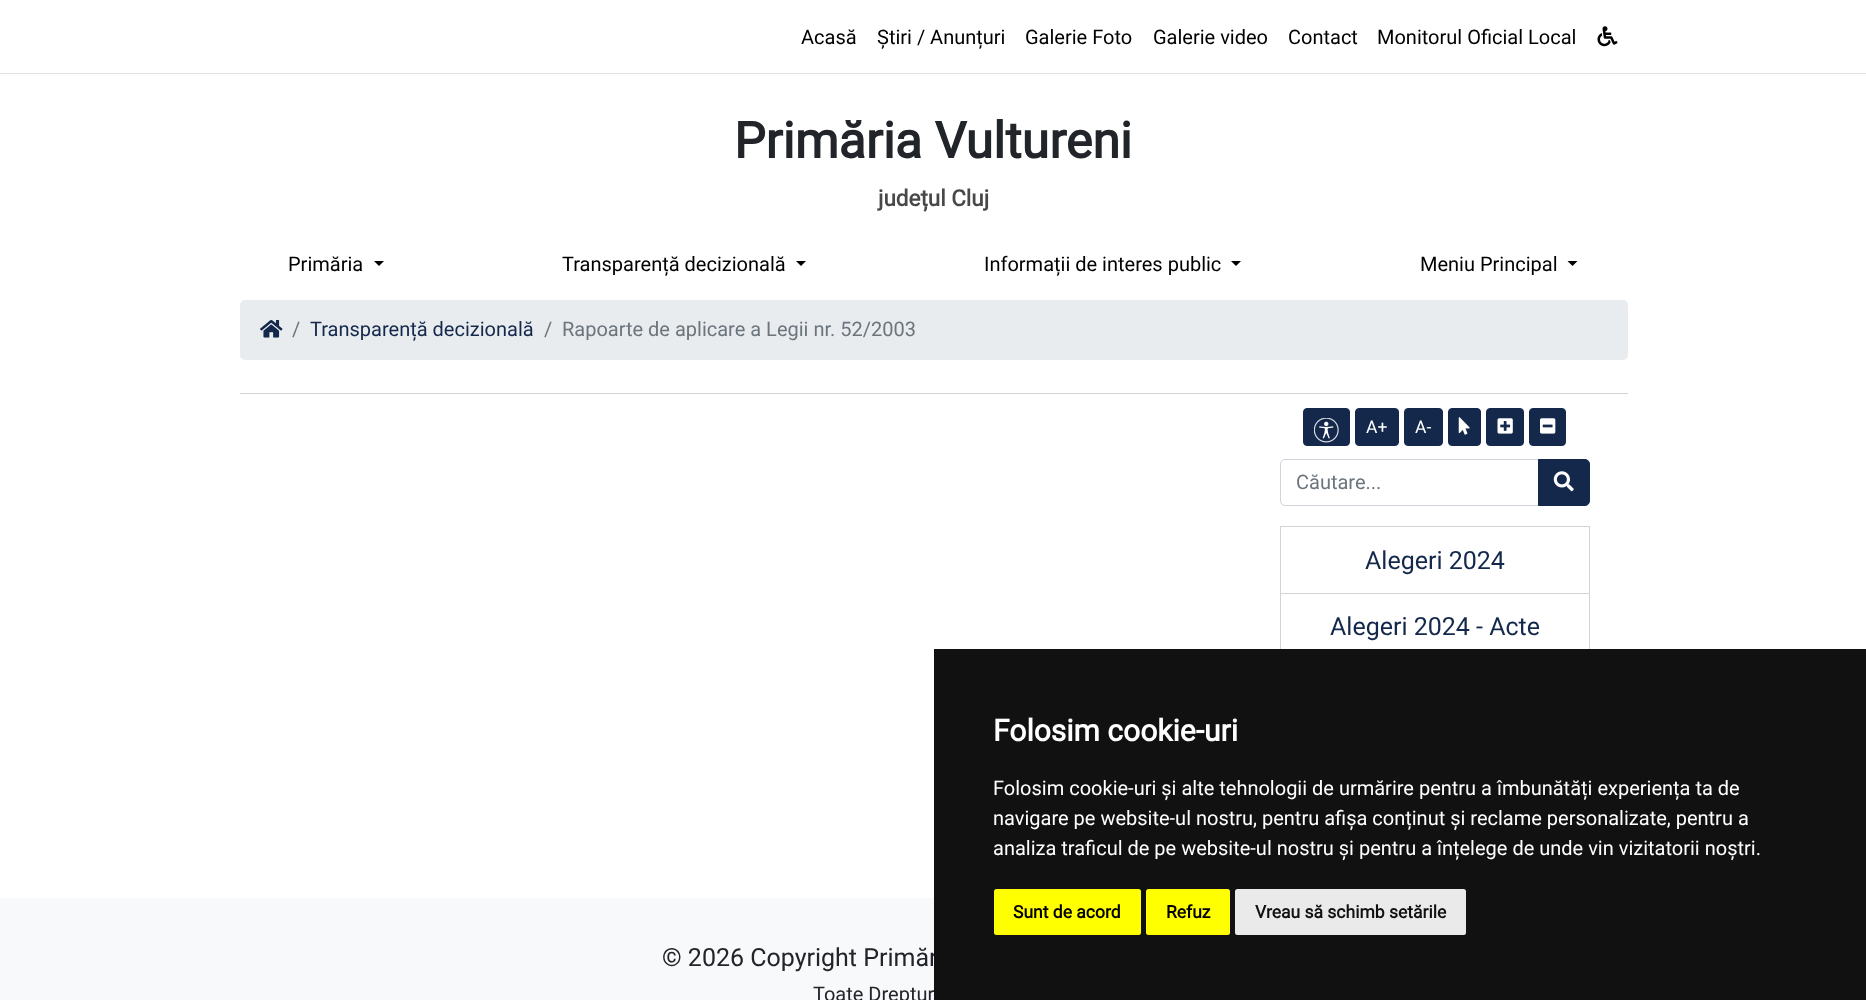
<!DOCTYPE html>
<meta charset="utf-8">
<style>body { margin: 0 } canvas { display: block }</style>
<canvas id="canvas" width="1866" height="1000"></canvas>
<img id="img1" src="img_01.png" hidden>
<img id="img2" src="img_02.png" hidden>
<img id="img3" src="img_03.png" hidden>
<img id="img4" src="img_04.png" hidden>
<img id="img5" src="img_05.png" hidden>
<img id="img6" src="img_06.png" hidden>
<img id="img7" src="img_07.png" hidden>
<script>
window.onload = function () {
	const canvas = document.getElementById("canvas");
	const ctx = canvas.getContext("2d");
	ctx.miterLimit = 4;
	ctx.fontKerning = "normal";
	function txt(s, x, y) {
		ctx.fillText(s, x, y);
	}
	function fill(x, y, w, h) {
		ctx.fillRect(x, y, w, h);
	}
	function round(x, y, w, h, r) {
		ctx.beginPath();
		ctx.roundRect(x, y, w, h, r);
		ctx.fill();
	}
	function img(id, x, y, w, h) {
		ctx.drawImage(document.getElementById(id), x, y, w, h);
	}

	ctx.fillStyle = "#FFFFFF";
	fill(0, 0, 1866, 1000);
	ctx.fillStyle = "#DEE2E6";
	fill(0, 73, 1866, 1);
	img("img1", 1597, 26, 21, 21);
	ctx.fillStyle = "#000000";
	ctx.beginPath();
	ctx.moveTo(374, 261);
	ctx.lineTo(384, 261);
	ctx.lineTo(379, 266);
	ctx.closePath();
	ctx.fill();
	ctx.beginPath();
	ctx.moveTo(796, 261);
	ctx.lineTo(806, 261);
	ctx.lineTo(801, 266);
	ctx.closePath();
	ctx.fill();
	ctx.beginPath();
	ctx.moveTo(1231, 261);
	ctx.lineTo(1241, 261);
	ctx.lineTo(1236, 266);
	ctx.closePath();
	ctx.fill();
	ctx.beginPath();
	ctx.moveTo(1567.5, 261);
	ctx.lineTo(1577.5, 261);
	ctx.lineTo(1572.5, 266);
	ctx.closePath();
	ctx.fill();
	ctx.fillStyle = "#E9ECEF";
	round(240, 300, 1388, 60, 5);
	img("img2", 260, 320, 23, 18);
	ctx.fillStyle = "#D3D3D3";
	fill(240, 393, 1388, 1);
	ctx.fillStyle = "#14284B";
	ctx.beginPath();
	ctx.roundRect(1303.5, 408.5, 46, 37, 3.5);
	ctx.fill();
	ctx.strokeStyle = "#14284B";
	ctx.stroke();
	img("img3", 1314, 418, 25, 25);
	ctx.beginPath();
	ctx.roundRect(1355.5, 408.5, 43, 37, 3.5);
	ctx.fill();
	ctx.stroke();
	ctx.beginPath();
	ctx.roundRect(1404.5, 408.5, 38, 37, 3.5);
	ctx.fill();
	ctx.stroke();
	ctx.beginPath();
	ctx.roundRect(1448.5, 408.5, 32, 37, 3.5);
	ctx.fill();
	ctx.stroke();
	img("img4", 1458, 417, 12, 18);
	ctx.beginPath();
	ctx.roundRect(1486.5, 408.5, 37, 37, 3.5);
	ctx.fill();
	ctx.stroke();
	img("img5", 1497, 418, 16, 16);
	ctx.beginPath();
	ctx.roundRect(1529.5, 408.5, 36, 37, 3.5);
	ctx.fill();
	ctx.stroke();
	img("img6", 1540, 418, 16, 16);
	ctx.beginPath();
	ctx.roundRect(1280.5, 459.5, 258, 46, [4.5, 0, 0, 4.5]);
	ctx.strokeStyle = "#CED4DA";
	ctx.stroke();
	ctx.beginPath();
	ctx.roundRect(1538.5, 459.5, 51, 46, [0, 4.5, 4.5, 0]);
	ctx.fill();
	ctx.strokeStyle = "#14284B";
	ctx.stroke();
	img("img7", 1553, 471, 21, 21);
	ctx.fillStyle = "#D3D3D3";
	fill(1280, 526, 310, 1);
	fill(1589, 526, 1, 67);
	fill(1280, 526, 1, 67);
	fill(1280, 593, 310, 1);
	fill(1589, 593, 1, 56);
	fill(1280, 593, 1, 56);
	ctx.fillStyle = "#F8F9FA";
	fill(0, 898, 934, 102);
	ctx.font = "20px Roboto";
	ctx.fillStyle = "#000000";
	txt("Acasă", 801, 44);
	txt("Știri / Anunțuri", 877, 44);
	txt("Galerie Foto", 1025, 44);
	txt("Galerie video", 1153, 44);
	txt("Contact", 1288, 44);
	txt("Monitorul Oficial Local", 1377, 44);
	ctx.font = "bold 50px Roboto";
	ctx.fillStyle = "#212529";
	txt("Primăria Vultureni", 734, 158);
	ctx.font = "bold 22.5px Roboto";
	ctx.fillStyle = "#484848";
	txt("județul Cluj", 878, 206);
	ctx.font = "20px Roboto";
	ctx.fillStyle = "#000000";
	txt("Primăria", 288, 271);
	txt("Transparență decizională", 562, 271);
	txt("Informații de interes public", 984, 271);
	txt("Meniu Principal", 1420, 271);
	ctx.fillStyle = "#6C757D";
	txt("/", 292, 336);
	ctx.fillStyle = "#14284B";
	txt("Transparență decizională", 310, 336);
	ctx.fillStyle = "#6C757D";
	txt("/", 544, 336);
	txt("Rapoarte de aplicare a Legii nr. 52/2003", 562, 336);
	ctx.font = "17.5px Roboto";
	ctx.fillStyle = "#FFFFFF";
	txt("A+", 1366, 433);
	txt("A-", 1415, 433);
	ctx.font = "20px Roboto";
	ctx.fillStyle = "#6C757D";
	txt("Căutare...", 1296, 489);
	ctx.font = "25px Roboto";
	ctx.fillStyle = "#14284B";
	txt("Alegeri 2024", 1365, 569);
	txt("Alegeri 2024 - Acte", 1330, 635);
	ctx.fillStyle = "#212529";
	txt("© 2026 Copyright Primăr", 662, 966);
	ctx.font = "20px Roboto";
	txt("Toate Dreptur", 813, 1001);
	ctx.fillStyle = "#111111";
	fill(934, 649, 932, 351);
	ctx.fillStyle = "#FFFFFF";
	txt("analiza traficul de pe website-ul nostru și pentru a înțelege de unde vin vizitatorii noștri.", 993, 855);
	txt("navigare pe website-ul nostru, pentru afișa conținut și reclame personalizate, pentru a", 993, 825);
	txt("Folosim cookie-uri și alte tehnologii de urmărire pentru a îmbunătăți experiența ta de", 993, 795);
	ctx.font = "bold 30px Roboto";
	txt("Folosim cookie-uri", 993, 741);
	ctx.fillStyle = "#EAEAEA";
	round(1235, 889, 231, 46, 2.5);
	ctx.font = "bold 17.5px Roboto";
	ctx.fillStyle = "#111111";
	txt("Vreau să schimb setările", 1255, 918);
	ctx.fillStyle = "#FFFF00";
	round(1146, 889, 84, 46, 2.5);
	ctx.fillStyle = "#000000";
	txt("Refuz", 1166, 918);
	ctx.fillStyle = "#FFFF00";
	round(994, 889, 147, 46, 2.5);
	ctx.fillStyle = "#000000";
	txt("Sunt de acord", 1013, 918);
};
</script>
